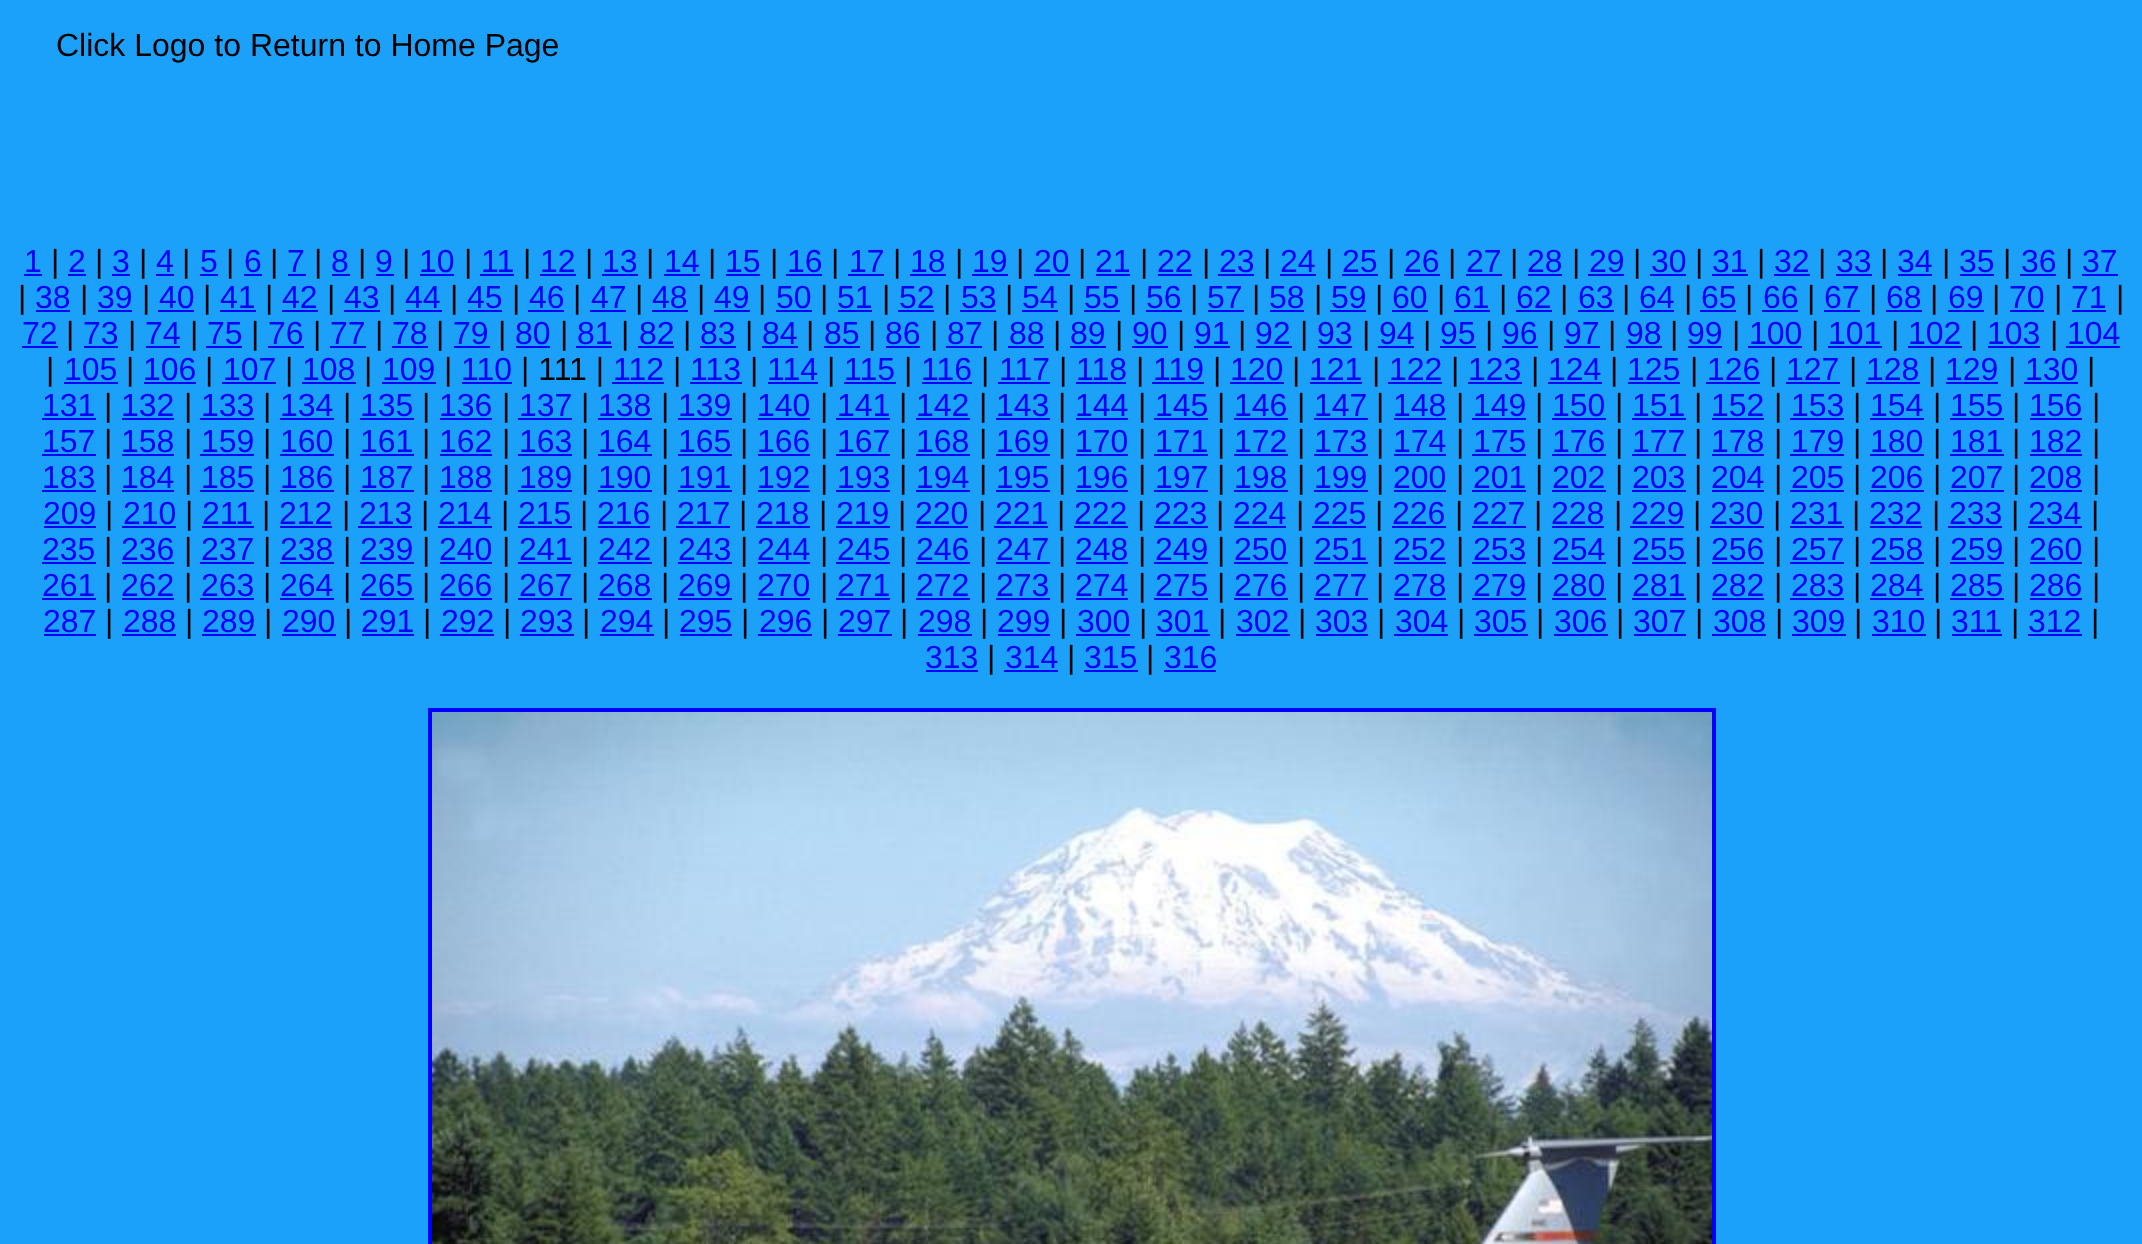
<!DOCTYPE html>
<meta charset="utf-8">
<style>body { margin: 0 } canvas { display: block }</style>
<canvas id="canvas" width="2142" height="1244"></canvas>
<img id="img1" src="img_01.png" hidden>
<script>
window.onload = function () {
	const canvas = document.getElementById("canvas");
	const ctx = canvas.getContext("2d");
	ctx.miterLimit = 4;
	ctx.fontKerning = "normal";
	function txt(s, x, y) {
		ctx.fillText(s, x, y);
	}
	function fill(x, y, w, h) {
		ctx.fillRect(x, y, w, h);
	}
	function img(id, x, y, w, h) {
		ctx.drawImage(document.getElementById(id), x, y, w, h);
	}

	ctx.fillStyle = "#1BA1FA";
	fill(0, 0, 2142, 1244);
	ctx.fillStyle = "#0000FF";
	fill(24, 274, 18, 2);
	fill(68, 274, 18, 2);
	fill(112, 274, 18, 2);
	fill(156, 274, 18, 2);
	fill(200, 274, 18, 2);
	fill(244, 274, 18, 2);
	fill(288, 274, 18, 2);
	fill(332, 274, 18, 2);
	fill(376, 274, 18, 2);
	fill(420, 274, 34, 2);
	fill(480, 274, 34, 2);
	fill(540, 274, 36, 2);
	fill(602, 274, 36, 2);
	fill(664, 274, 36, 2);
	fill(726, 274, 34, 2);
	fill(786, 274, 36, 2);
	fill(848, 274, 36, 2);
	fill(910, 274, 36, 2);
	fill(972, 274, 36, 2);
	fill(1034, 274, 36, 2);
	fill(1096, 274, 34, 2);
	fill(1158, 274, 34, 2);
	fill(1218, 274, 36, 2);
	fill(1280, 274, 36, 2);
	fill(1342, 274, 36, 2);
	fill(1404, 274, 36, 2);
	fill(1466, 274, 36, 2);
	fill(1528, 274, 34, 2);
	fill(1588, 274, 36, 2);
	fill(1650, 274, 36, 2);
	fill(1712, 274, 36, 2);
	fill(1774, 274, 36, 2);
	fill(1836, 274, 36, 2);
	fill(1898, 274, 34, 2);
	fill(1960, 274, 34, 2);
	fill(2020, 274, 36, 2);
	fill(2082, 274, 36, 2);
	fill(36, 310, 34, 2);
	fill(98, 310, 34, 2);
	fill(158, 310, 36, 2);
	fill(220, 310, 36, 2);
	fill(282, 310, 36, 2);
	fill(344, 310, 36, 2);
	fill(406, 310, 36, 2);
	fill(468, 310, 34, 2);
	fill(528, 310, 36, 2);
	fill(590, 310, 36, 2);
	fill(652, 310, 36, 2);
	fill(714, 310, 36, 2);
	fill(776, 310, 36, 2);
	fill(838, 310, 34, 2);
	fill(898, 310, 36, 2);
	fill(960, 310, 36, 2);
	fill(1022, 310, 36, 2);
	fill(1084, 310, 36, 2);
	fill(1146, 310, 36, 2);
	fill(1208, 310, 36, 2);
	fill(1270, 310, 34, 2);
	fill(1330, 310, 36, 2);
	fill(1392, 310, 36, 2);
	fill(1454, 310, 36, 2);
	fill(1516, 310, 36, 2);
	fill(1578, 310, 36, 2);
	fill(1640, 310, 34, 2);
	fill(1700, 310, 36, 2);
	fill(1762, 310, 36, 2);
	fill(1824, 310, 36, 2);
	fill(1886, 310, 36, 2);
	fill(1948, 310, 36, 2);
	fill(2010, 310, 34, 2);
	fill(2072, 310, 34, 2);
	fill(22, 346, 36, 2);
	fill(84, 346, 34, 2);
	fill(146, 346, 34, 2);
	fill(206, 346, 36, 2);
	fill(268, 346, 36, 2);
	fill(330, 346, 36, 2);
	fill(392, 346, 36, 2);
	fill(454, 346, 36, 2);
	fill(516, 346, 34, 2);
	fill(576, 346, 36, 2);
	fill(638, 346, 36, 2);
	fill(700, 346, 36, 2);
	fill(762, 346, 36, 2);
	fill(824, 346, 36, 2);
	fill(886, 346, 34, 2);
	fill(946, 346, 36, 2);
	fill(1008, 346, 36, 2);
	fill(1070, 346, 36, 2);
	fill(1132, 346, 36, 2);
	fill(1194, 346, 36, 2);
	fill(1256, 346, 36, 2);
	fill(1318, 346, 34, 2);
	fill(1378, 346, 36, 2);
	fill(1440, 346, 36, 2);
	fill(1502, 346, 36, 2);
	fill(1564, 346, 36, 2);
	fill(1626, 346, 36, 2);
	fill(1688, 346, 34, 2);
	fill(1748, 346, 54, 2);
	fill(1828, 346, 54, 2);
	fill(1908, 346, 54, 2);
	fill(1988, 346, 52, 2);
	fill(2066, 346, 54, 2);
	fill(64, 382, 54, 2);
	fill(144, 382, 52, 2);
	fill(222, 382, 54, 2);
	fill(302, 382, 54, 2);
	fill(382, 382, 54, 2);
	fill(462, 382, 50, 2);
	fill(612, 382, 52, 2);
	fill(690, 382, 52, 2);
	fill(768, 382, 50, 2);
	fill(844, 382, 52, 2);
	fill(922, 382, 50, 2);
	fill(998, 382, 52, 2);
	fill(1076, 382, 50, 2);
	fill(1152, 382, 52, 2);
	fill(1230, 382, 54, 2);
	fill(1310, 382, 52, 2);
	fill(1388, 382, 54, 2);
	fill(1468, 382, 54, 2);
	fill(1548, 382, 54, 2);
	fill(1628, 382, 52, 2);
	fill(1706, 382, 54, 2);
	fill(1786, 382, 54, 2);
	fill(1866, 382, 54, 2);
	fill(1946, 382, 52, 2);
	fill(2024, 382, 54, 2);
	fill(42, 418, 54, 2);
	fill(122, 418, 52, 2);
	fill(200, 418, 54, 2);
	fill(280, 418, 54, 2);
	fill(360, 418, 54, 2);
	fill(440, 418, 52, 2);
	fill(518, 418, 54, 2);
	fill(598, 418, 54, 2);
	fill(678, 418, 54, 2);
	fill(758, 418, 52, 2);
	fill(836, 418, 54, 2);
	fill(916, 418, 54, 2);
	fill(996, 418, 54, 2);
	fill(1076, 418, 52, 2);
	fill(1154, 418, 54, 2);
	fill(1234, 418, 54, 2);
	fill(1314, 418, 54, 2);
	fill(1394, 418, 52, 2);
	fill(1472, 418, 54, 2);
	fill(1552, 418, 54, 2);
	fill(1632, 418, 54, 2);
	fill(1712, 418, 52, 2);
	fill(1790, 418, 54, 2);
	fill(1870, 418, 54, 2);
	fill(1950, 418, 54, 2);
	fill(2030, 418, 52, 2);
	fill(42, 454, 54, 2);
	fill(122, 454, 52, 2);
	fill(200, 454, 54, 2);
	fill(280, 454, 54, 2);
	fill(360, 454, 54, 2);
	fill(440, 454, 52, 2);
	fill(518, 454, 54, 2);
	fill(598, 454, 54, 2);
	fill(678, 454, 54, 2);
	fill(758, 454, 52, 2);
	fill(836, 454, 54, 2);
	fill(916, 454, 54, 2);
	fill(996, 454, 54, 2);
	fill(1076, 454, 52, 2);
	fill(1154, 454, 54, 2);
	fill(1234, 454, 54, 2);
	fill(1314, 454, 54, 2);
	fill(1394, 454, 52, 2);
	fill(1472, 454, 54, 2);
	fill(1552, 454, 54, 2);
	fill(1632, 454, 54, 2);
	fill(1712, 454, 52, 2);
	fill(1790, 454, 54, 2);
	fill(1870, 454, 54, 2);
	fill(1950, 454, 54, 2);
	fill(2030, 454, 52, 2);
	fill(42, 490, 54, 2);
	fill(122, 490, 52, 2);
	fill(200, 490, 54, 2);
	fill(280, 490, 54, 2);
	fill(360, 490, 54, 2);
	fill(440, 490, 52, 2);
	fill(518, 490, 54, 2);
	fill(598, 490, 54, 2);
	fill(678, 490, 54, 2);
	fill(758, 490, 52, 2);
	fill(836, 490, 54, 2);
	fill(916, 490, 54, 2);
	fill(996, 490, 54, 2);
	fill(1076, 490, 52, 2);
	fill(1154, 490, 54, 2);
	fill(1234, 490, 54, 2);
	fill(1314, 490, 54, 2);
	fill(1394, 490, 52, 2);
	fill(1472, 490, 54, 2);
	fill(1552, 490, 54, 2);
	fill(1632, 490, 54, 2);
	fill(1712, 490, 52, 2);
	fill(1790, 490, 54, 2);
	fill(1870, 490, 54, 2);
	fill(1950, 490, 54, 2);
	fill(2030, 490, 52, 2);
	fill(44, 526, 52, 2);
	fill(122, 526, 54, 2);
	fill(202, 526, 52, 2);
	fill(280, 526, 52, 2);
	fill(358, 526, 54, 2);
	fill(438, 526, 54, 2);
	fill(518, 526, 54, 2);
	fill(598, 526, 52, 2);
	fill(676, 526, 54, 2);
	fill(756, 526, 54, 2);
	fill(836, 526, 54, 2);
	fill(916, 526, 52, 2);
	fill(994, 526, 54, 2);
	fill(1074, 526, 54, 2);
	fill(1154, 526, 54, 2);
	fill(1234, 526, 52, 2);
	fill(1312, 526, 54, 2);
	fill(1392, 526, 54, 2);
	fill(1472, 526, 54, 2);
	fill(1552, 526, 52, 2);
	fill(1630, 526, 54, 2);
	fill(1710, 526, 54, 2);
	fill(1790, 526, 54, 2);
	fill(1870, 526, 52, 2);
	fill(1948, 526, 54, 2);
	fill(2028, 526, 54, 2);
	fill(42, 562, 54, 2);
	fill(122, 562, 52, 2);
	fill(200, 562, 54, 2);
	fill(280, 562, 54, 2);
	fill(360, 562, 54, 2);
	fill(440, 562, 52, 2);
	fill(518, 562, 54, 2);
	fill(598, 562, 54, 2);
	fill(678, 562, 54, 2);
	fill(758, 562, 52, 2);
	fill(836, 562, 54, 2);
	fill(916, 562, 54, 2);
	fill(996, 562, 54, 2);
	fill(1076, 562, 52, 2);
	fill(1154, 562, 54, 2);
	fill(1234, 562, 54, 2);
	fill(1314, 562, 54, 2);
	fill(1394, 562, 52, 2);
	fill(1472, 562, 54, 2);
	fill(1552, 562, 54, 2);
	fill(1632, 562, 54, 2);
	fill(1712, 562, 52, 2);
	fill(1790, 562, 54, 2);
	fill(1870, 562, 54, 2);
	fill(1950, 562, 54, 2);
	fill(2030, 562, 52, 2);
	fill(42, 598, 54, 2);
	fill(122, 598, 52, 2);
	fill(200, 598, 54, 2);
	fill(280, 598, 54, 2);
	fill(360, 598, 54, 2);
	fill(440, 598, 52, 2);
	fill(518, 598, 54, 2);
	fill(598, 598, 54, 2);
	fill(678, 598, 54, 2);
	fill(758, 598, 52, 2);
	fill(836, 598, 54, 2);
	fill(916, 598, 54, 2);
	fill(996, 598, 54, 2);
	fill(1076, 598, 52, 2);
	fill(1154, 598, 54, 2);
	fill(1234, 598, 54, 2);
	fill(1314, 598, 54, 2);
	fill(1394, 598, 52, 2);
	fill(1472, 598, 54, 2);
	fill(1552, 598, 54, 2);
	fill(1632, 598, 54, 2);
	fill(1712, 598, 52, 2);
	fill(1790, 598, 54, 2);
	fill(1870, 598, 54, 2);
	fill(1950, 598, 54, 2);
	fill(2030, 598, 52, 2);
	fill(44, 634, 52, 2);
	fill(122, 634, 54, 2);
	fill(202, 634, 54, 2);
	fill(282, 634, 54, 2);
	fill(362, 634, 52, 2);
	fill(440, 634, 54, 2);
	fill(520, 634, 54, 2);
	fill(600, 634, 54, 2);
	fill(680, 634, 52, 2);
	fill(758, 634, 54, 2);
	fill(838, 634, 54, 2);
	fill(918, 634, 54, 2);
	fill(998, 634, 52, 2);
	fill(1076, 634, 54, 2);
	fill(1156, 634, 54, 2);
	fill(1236, 634, 54, 2);
	fill(1316, 634, 52, 2);
	fill(1394, 634, 54, 2);
	fill(1474, 634, 54, 2);
	fill(1554, 634, 54, 2);
	fill(1634, 634, 52, 2);
	fill(1712, 634, 54, 2);
	fill(1792, 634, 54, 2);
	fill(1872, 634, 54, 2);
	fill(1952, 634, 50, 2);
	fill(2028, 634, 54, 2);
	fill(926, 670, 52, 2);
	fill(1004, 670, 54, 2);
	fill(1084, 670, 54, 2);
	fill(1164, 670, 52, 2);
	ctx.strokeStyle = "#0000FF";
	ctx.lineWidth = 4;
	ctx.strokeRect(430, 710, 1284, 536);
	img("img1", 432, 712, 1280, 532);
	ctx.font = "32px Liberation Sans";
	ctx.fillStyle = "#000000";
	txt("Click Logo to Return to Home Page", 56, 56);
	ctx.fillStyle = "#0000FF";
	txt("1", 24, 272);
	ctx.fillStyle = "#000000";
	txt("|", 51, 272);
	ctx.fillStyle = "#0000FF";
	txt("2", 68, 272);
	ctx.fillStyle = "#000000";
	txt("|", 95, 272);
	ctx.fillStyle = "#0000FF";
	txt("3", 112, 272);
	ctx.fillStyle = "#000000";
	txt("|", 139, 272);
	ctx.fillStyle = "#0000FF";
	txt("4", 156, 272);
	ctx.fillStyle = "#000000";
	txt("|", 182, 272);
	ctx.fillStyle = "#0000FF";
	txt("5", 200, 272);
	ctx.fillStyle = "#000000";
	txt("|", 226, 272);
	ctx.fillStyle = "#0000FF";
	txt("6", 244, 272);
	ctx.fillStyle = "#000000";
	txt("|", 270, 272);
	ctx.fillStyle = "#0000FF";
	txt("7", 287, 272);
	ctx.fillStyle = "#000000";
	txt("|", 314, 272);
	ctx.fillStyle = "#0000FF";
	txt("8", 331, 272);
	ctx.fillStyle = "#000000";
	txt("|", 358, 272);
	ctx.fillStyle = "#0000FF";
	txt("9", 375, 272);
	ctx.fillStyle = "#000000";
	txt("|", 402, 272);
	ctx.fillStyle = "#0000FF";
	txt("10", 419, 272);
	ctx.fillStyle = "#000000";
	txt("|", 464, 272);
	ctx.fillStyle = "#0000FF";
	txt("11", 481, 272);
	ctx.fillStyle = "#000000";
	txt("|", 523, 272);
	ctx.fillStyle = "#0000FF";
	txt("12", 540, 272);
	ctx.fillStyle = "#000000";
	txt("|", 585, 272);
	ctx.fillStyle = "#0000FF";
	txt("13", 602, 272);
	ctx.fillStyle = "#000000";
	txt("|", 646, 272);
	ctx.fillStyle = "#0000FF";
	txt("14", 664, 272);
	ctx.fillStyle = "#000000";
	txt("|", 708, 272);
	ctx.fillStyle = "#0000FF";
	txt("15", 725, 272);
	ctx.fillStyle = "#000000";
	txt("|", 770, 272);
	ctx.fillStyle = "#0000FF";
	txt("16", 787, 272);
	ctx.fillStyle = "#000000";
	txt("|", 831, 272);
	ctx.fillStyle = "#0000FF";
	txt("17", 849, 272);
	ctx.fillStyle = "#000000";
	txt("|", 893, 272);
	ctx.fillStyle = "#0000FF";
	txt("18", 910, 272);
	ctx.fillStyle = "#000000";
	txt("|", 955, 272);
	ctx.fillStyle = "#0000FF";
	txt("19", 972, 272);
	ctx.fillStyle = "#000000";
	txt("|", 1016, 272);
	ctx.fillStyle = "#0000FF";
	txt("20", 1034, 272);
	ctx.fillStyle = "#000000";
	txt("|", 1078, 272);
	ctx.fillStyle = "#0000FF";
	txt("21", 1095, 272);
	ctx.fillStyle = "#000000";
	txt("|", 1140, 272);
	ctx.fillStyle = "#0000FF";
	txt("22", 1157, 272);
	ctx.fillStyle = "#000000";
	txt("|", 1202, 272);
	ctx.fillStyle = "#0000FF";
	txt("23", 1219, 272);
	ctx.fillStyle = "#000000";
	txt("|", 1263, 272);
	ctx.fillStyle = "#0000FF";
	txt("24", 1280, 272);
	ctx.fillStyle = "#000000";
	txt("|", 1325, 272);
	ctx.fillStyle = "#0000FF";
	txt("25", 1342, 272);
	ctx.fillStyle = "#000000";
	txt("|", 1387, 272);
	ctx.fillStyle = "#0000FF";
	txt("26", 1404, 272);
	ctx.fillStyle = "#000000";
	txt("|", 1448, 272);
	ctx.fillStyle = "#0000FF";
	txt("27", 1466, 272);
	ctx.fillStyle = "#000000";
	txt("|", 1510, 272);
	ctx.fillStyle = "#0000FF";
	txt("28", 1527, 272);
	ctx.fillStyle = "#000000";
	txt("|", 1572, 272);
	ctx.fillStyle = "#0000FF";
	txt("29", 1589, 272);
	ctx.fillStyle = "#000000";
	txt("|", 1633, 272);
	ctx.fillStyle = "#0000FF";
	txt("30", 1651, 272);
	ctx.fillStyle = "#000000";
	txt("|", 1695, 272);
	ctx.fillStyle = "#0000FF";
	txt("31", 1712, 272);
	ctx.fillStyle = "#000000";
	txt("|", 1757, 272);
	ctx.fillStyle = "#0000FF";
	txt("32", 1774, 272);
	ctx.fillStyle = "#000000";
	txt("|", 1818, 272);
	ctx.fillStyle = "#0000FF";
	txt("33", 1836, 272);
	ctx.fillStyle = "#000000";
	txt("|", 1880, 272);
	ctx.fillStyle = "#0000FF";
	txt("34", 1897, 272);
	ctx.fillStyle = "#000000";
	txt("|", 1942, 272);
	ctx.fillStyle = "#0000FF";
	txt("35", 1959, 272);
	ctx.fillStyle = "#000000";
	txt("|", 2003, 272);
	ctx.fillStyle = "#0000FF";
	txt("36", 2021, 272);
	ctx.fillStyle = "#000000";
	txt("|", 2065, 272);
	ctx.fillStyle = "#0000FF";
	txt("37", 2082, 272);
	ctx.fillStyle = "#000000";
	txt("|", 18, 308);
	ctx.fillStyle = "#0000FF";
	txt("38", 35, 308);
	ctx.fillStyle = "#000000";
	txt("|", 80, 308);
	ctx.fillStyle = "#0000FF";
	txt("39", 97, 308);
	ctx.fillStyle = "#000000";
	txt("|", 142, 308);
	ctx.fillStyle = "#0000FF";
	txt("40", 159, 308);
	ctx.fillStyle = "#000000";
	txt("|", 203, 308);
	ctx.fillStyle = "#0000FF";
	txt("41", 220, 308);
	ctx.fillStyle = "#000000";
	txt("|", 265, 308);
	ctx.fillStyle = "#0000FF";
	txt("42", 282, 308);
	ctx.fillStyle = "#000000";
	txt("|", 327, 308);
	ctx.fillStyle = "#0000FF";
	txt("43", 344, 308);
	ctx.fillStyle = "#000000";
	txt("|", 388, 308);
	ctx.fillStyle = "#0000FF";
	txt("44", 405, 308);
	ctx.fillStyle = "#000000";
	txt("|", 450, 308);
	ctx.fillStyle = "#0000FF";
	txt("45", 467, 308);
	ctx.fillStyle = "#000000";
	txt("|", 512, 308);
	ctx.fillStyle = "#0000FF";
	txt("46", 529, 308);
	ctx.fillStyle = "#000000";
	txt("|", 573, 308);
	ctx.fillStyle = "#0000FF";
	txt("47", 591, 308);
	ctx.fillStyle = "#000000";
	txt("|", 635, 308);
	ctx.fillStyle = "#0000FF";
	txt("48", 652, 308);
	ctx.fillStyle = "#000000";
	txt("|", 697, 308);
	ctx.fillStyle = "#0000FF";
	txt("49", 714, 308);
	ctx.fillStyle = "#000000";
	txt("|", 758, 308);
	ctx.fillStyle = "#0000FF";
	txt("50", 776, 308);
	ctx.fillStyle = "#000000";
	txt("|", 820, 308);
	ctx.fillStyle = "#0000FF";
	txt("51", 837, 308);
	ctx.fillStyle = "#000000";
	txt("|", 882, 308);
	ctx.fillStyle = "#0000FF";
	txt("52", 899, 308);
	ctx.fillStyle = "#000000";
	txt("|", 943, 308);
	ctx.fillStyle = "#0000FF";
	txt("53", 961, 308);
	ctx.fillStyle = "#000000";
	txt("|", 1005, 308);
	ctx.fillStyle = "#0000FF";
	txt("54", 1022, 308);
	ctx.fillStyle = "#000000";
	txt("|", 1067, 308);
	ctx.fillStyle = "#0000FF";
	txt("55", 1084, 308);
	ctx.fillStyle = "#000000";
	txt("|", 1129, 308);
	ctx.fillStyle = "#0000FF";
	txt("56", 1146, 308);
	ctx.fillStyle = "#000000";
	txt("|", 1190, 308);
	ctx.fillStyle = "#0000FF";
	txt("57", 1207, 308);
	ctx.fillStyle = "#000000";
	txt("|", 1252, 308);
	ctx.fillStyle = "#0000FF";
	txt("58", 1269, 308);
	ctx.fillStyle = "#000000";
	txt("|", 1314, 308);
	ctx.fillStyle = "#0000FF";
	txt("59", 1331, 308);
	ctx.fillStyle = "#000000";
	txt("|", 1375, 308);
	ctx.fillStyle = "#0000FF";
	txt("60", 1392, 308);
	ctx.fillStyle = "#000000";
	txt("|", 1437, 308);
	ctx.fillStyle = "#0000FF";
	txt("61", 1454, 308);
	ctx.fillStyle = "#000000";
	txt("|", 1499, 308);
	ctx.fillStyle = "#0000FF";
	txt("62", 1516, 308);
	ctx.fillStyle = "#000000";
	txt("|", 1560, 308);
	ctx.fillStyle = "#0000FF";
	txt("63", 1578, 308);
	ctx.fillStyle = "#000000";
	txt("|", 1622, 308);
	ctx.fillStyle = "#0000FF";
	txt("64", 1639, 308);
	ctx.fillStyle = "#000000";
	txt("|", 1684, 308);
	ctx.fillStyle = "#0000FF";
	txt("65", 1701, 308);
	ctx.fillStyle = "#000000";
	txt("|", 1745, 308);
	ctx.fillStyle = "#0000FF";
	txt("66", 1763, 308);
	ctx.fillStyle = "#000000";
	txt("|", 1807, 308);
	ctx.fillStyle = "#0000FF";
	txt("67", 1824, 308);
	ctx.fillStyle = "#000000";
	txt("|", 1869, 308);
	ctx.fillStyle = "#0000FF";
	txt("68", 1886, 308);
	ctx.fillStyle = "#000000";
	txt("|", 1930, 308);
	ctx.fillStyle = "#0000FF";
	txt("69", 1948, 308);
	ctx.fillStyle = "#000000";
	txt("|", 1992, 308);
	ctx.fillStyle = "#0000FF";
	txt("70", 2009, 308);
	ctx.fillStyle = "#000000";
	txt("|", 2054, 308);
	ctx.fillStyle = "#0000FF";
	txt("71", 2071, 308);
	ctx.fillStyle = "#000000";
	txt("|", 2116, 308);
	ctx.fillStyle = "#0000FF";
	txt("72", 22, 344);
	ctx.fillStyle = "#000000";
	txt("|", 66, 344);
	ctx.fillStyle = "#0000FF";
	txt("73", 83, 344);
	ctx.fillStyle = "#000000";
	txt("|", 128, 344);
	ctx.fillStyle = "#0000FF";
	txt("74", 145, 344);
	ctx.fillStyle = "#000000";
	txt("|", 190, 344);
	ctx.fillStyle = "#0000FF";
	txt("75", 207, 344);
	ctx.fillStyle = "#000000";
	txt("|", 251, 344);
	ctx.fillStyle = "#0000FF";
	txt("76", 268, 344);
	ctx.fillStyle = "#000000";
	txt("|", 313, 344);
	ctx.fillStyle = "#0000FF";
	txt("77", 330, 344);
	ctx.fillStyle = "#000000";
	txt("|", 375, 344);
	ctx.fillStyle = "#0000FF";
	txt("78", 392, 344);
	ctx.fillStyle = "#000000";
	txt("|", 436, 344);
	ctx.fillStyle = "#0000FF";
	txt("79", 453, 344);
	ctx.fillStyle = "#000000";
	txt("|", 498, 344);
	ctx.fillStyle = "#0000FF";
	txt("80", 515, 344);
	ctx.fillStyle = "#000000";
	txt("|", 560, 344);
	ctx.fillStyle = "#0000FF";
	txt("81", 577, 344);
	ctx.fillStyle = "#000000";
	txt("|", 621, 344);
	ctx.fillStyle = "#0000FF";
	txt("82", 639, 344);
	ctx.fillStyle = "#000000";
	txt("|", 683, 344);
	ctx.fillStyle = "#0000FF";
	txt("83", 700, 344);
	ctx.fillStyle = "#000000";
	txt("|", 745, 344);
	ctx.fillStyle = "#0000FF";
	txt("84", 762, 344);
	ctx.fillStyle = "#000000";
	txt("|", 806, 344);
	ctx.fillStyle = "#0000FF";
	txt("85", 824, 344);
	ctx.fillStyle = "#000000";
	txt("|", 868, 344);
	ctx.fillStyle = "#0000FF";
	txt("86", 885, 344);
	ctx.fillStyle = "#000000";
	txt("|", 930, 344);
	ctx.fillStyle = "#0000FF";
	txt("87", 947, 344);
	ctx.fillStyle = "#000000";
	txt("|", 991, 344);
	ctx.fillStyle = "#0000FF";
	txt("88", 1009, 344);
	ctx.fillStyle = "#000000";
	txt("|", 1053, 344);
	ctx.fillStyle = "#0000FF";
	txt("89", 1070, 344);
	ctx.fillStyle = "#000000";
	txt("|", 1115, 344);
	ctx.fillStyle = "#0000FF";
	txt("90", 1132, 344);
	ctx.fillStyle = "#000000";
	txt("|", 1177, 344);
	ctx.fillStyle = "#0000FF";
	txt("91", 1194, 344);
	ctx.fillStyle = "#000000";
	txt("|", 1238, 344);
	ctx.fillStyle = "#0000FF";
	txt("92", 1255, 344);
	ctx.fillStyle = "#000000";
	txt("|", 1300, 344);
	ctx.fillStyle = "#0000FF";
	txt("93", 1317, 344);
	ctx.fillStyle = "#000000";
	txt("|", 1362, 344);
	ctx.fillStyle = "#0000FF";
	txt("94", 1379, 344);
	ctx.fillStyle = "#000000";
	txt("|", 1423, 344);
	ctx.fillStyle = "#0000FF";
	txt("95", 1440, 344);
	ctx.fillStyle = "#000000";
	txt("|", 1485, 344);
	ctx.fillStyle = "#0000FF";
	txt("96", 1502, 344);
	ctx.fillStyle = "#000000";
	txt("|", 1547, 344);
	ctx.fillStyle = "#0000FF";
	txt("97", 1564, 344);
	ctx.fillStyle = "#000000";
	txt("|", 1608, 344);
	ctx.fillStyle = "#0000FF";
	txt("98", 1626, 344);
	ctx.fillStyle = "#000000";
	txt("|", 1670, 344);
	ctx.fillStyle = "#0000FF";
	txt("99", 1687, 344);
	ctx.fillStyle = "#000000";
	txt("|", 1732, 344);
	ctx.fillStyle = "#0000FF";
	txt("100", 1749, 344);
	ctx.fillStyle = "#000000";
	txt("|", 1811, 344);
	ctx.fillStyle = "#0000FF";
	txt("101", 1828, 344);
	ctx.fillStyle = "#000000";
	txt("|", 1891, 344);
	ctx.fillStyle = "#0000FF";
	txt("102", 1908, 344);
	ctx.fillStyle = "#000000";
	txt("|", 1970, 344);
	ctx.fillStyle = "#0000FF";
	txt("103", 1987, 344);
	ctx.fillStyle = "#000000";
	txt("|", 2050, 344);
	ctx.fillStyle = "#0000FF";
	txt("104", 2067, 344);
	ctx.fillStyle = "#000000";
	txt("|", 46, 380);
	ctx.fillStyle = "#0000FF";
	txt("105", 64, 380);
	ctx.fillStyle = "#000000";
	txt("|", 126, 380);
	ctx.fillStyle = "#0000FF";
	txt("106", 143, 380);
	ctx.fillStyle = "#000000";
	txt("|", 205, 380);
	ctx.fillStyle = "#0000FF";
	txt("107", 223, 380);
	ctx.fillStyle = "#000000";
	txt("|", 285, 380);
	ctx.fillStyle = "#0000FF";
	txt("108", 302, 380);
	ctx.fillStyle = "#000000";
	txt("|", 364, 380);
	ctx.fillStyle = "#0000FF";
	txt("109", 382, 380);
	ctx.fillStyle = "#000000";
	txt("|", 444, 380);
	ctx.fillStyle = "#0000FF";
	txt("110", 461, 380);
	ctx.fillStyle = "#000000";
	txt("| 111 |", 521, 380);
	ctx.fillStyle = "#0000FF";
	txt("112", 613, 380);
	ctx.fillStyle = "#000000";
	txt("|", 673, 380);
	ctx.fillStyle = "#0000FF";
	txt("113", 690, 380);
	ctx.fillStyle = "#000000";
	txt("|", 750, 380);
	ctx.fillStyle = "#0000FF";
	txt("114", 767, 380);
	ctx.fillStyle = "#000000";
	txt("|", 827, 380);
	ctx.fillStyle = "#0000FF";
	txt("115", 844, 380);
	ctx.fillStyle = "#000000";
	txt("|", 904, 380);
	ctx.fillStyle = "#0000FF";
	txt("116", 921, 380);
	ctx.fillStyle = "#000000";
	txt("|", 981, 380);
	ctx.fillStyle = "#0000FF";
	txt("117", 999, 380);
	ctx.fillStyle = "#000000";
	txt("|", 1059, 380);
	ctx.fillStyle = "#0000FF";
	txt("118", 1076, 380);
	ctx.fillStyle = "#000000";
	txt("|", 1136, 380);
	ctx.fillStyle = "#0000FF";
	txt("119", 1153, 380);
	ctx.fillStyle = "#000000";
	txt("|", 1213, 380);
	ctx.fillStyle = "#0000FF";
	txt("120", 1230, 380);
	ctx.fillStyle = "#000000";
	txt("|", 1292, 380);
	ctx.fillStyle = "#0000FF";
	txt("121", 1309, 380);
	ctx.fillStyle = "#000000";
	txt("|", 1372, 380);
	ctx.fillStyle = "#0000FF";
	txt("122", 1389, 380);
	ctx.fillStyle = "#000000";
	txt("|", 1451, 380);
	ctx.fillStyle = "#0000FF";
	txt("123", 1468, 380);
	ctx.fillStyle = "#000000";
	txt("|", 1531, 380);
	ctx.fillStyle = "#0000FF";
	txt("124", 1548, 380);
	ctx.fillStyle = "#000000";
	txt("|", 1610, 380);
	ctx.fillStyle = "#0000FF";
	txt("125", 1627, 380);
	ctx.fillStyle = "#000000";
	txt("|", 1690, 380);
	ctx.fillStyle = "#0000FF";
	txt("126", 1707, 380);
	ctx.fillStyle = "#000000";
	txt("|", 1769, 380);
	ctx.fillStyle = "#0000FF";
	txt("127", 1786, 380);
	ctx.fillStyle = "#000000";
	txt("|", 1849, 380);
	ctx.fillStyle = "#0000FF";
	txt("128", 1866, 380);
	ctx.fillStyle = "#000000";
	txt("|", 1928, 380);
	ctx.fillStyle = "#0000FF";
	txt("129", 1945, 380);
	ctx.fillStyle = "#000000";
	txt("|", 2008, 380);
	ctx.fillStyle = "#0000FF";
	txt("130", 2025, 380);
	ctx.fillStyle = "#000000";
	txt("|", 2087, 380);
	ctx.fillStyle = "#0000FF";
	txt("131", 42, 416);
	ctx.fillStyle = "#000000";
	txt("|", 104, 416);
	ctx.fillStyle = "#0000FF";
	txt("132", 121, 416);
	ctx.fillStyle = "#000000";
	txt("|", 184, 416);
	ctx.fillStyle = "#0000FF";
	txt("133", 201, 416);
	ctx.fillStyle = "#000000";
	txt("|", 263, 416);
	ctx.fillStyle = "#0000FF";
	txt("134", 280, 416);
	ctx.fillStyle = "#000000";
	txt("|", 343, 416);
	ctx.fillStyle = "#0000FF";
	txt("135", 360, 416);
	ctx.fillStyle = "#000000";
	txt("|", 422, 416);
	ctx.fillStyle = "#0000FF";
	txt("136", 439, 416);
	ctx.fillStyle = "#000000";
	txt("|", 502, 416);
	ctx.fillStyle = "#0000FF";
	txt("137", 519, 416);
	ctx.fillStyle = "#000000";
	txt("|", 581, 416);
	ctx.fillStyle = "#0000FF";
	txt("138", 598, 416);
	ctx.fillStyle = "#000000";
	txt("|", 661, 416);
	ctx.fillStyle = "#0000FF";
	txt("139", 678, 416);
	ctx.fillStyle = "#000000";
	txt("|", 740, 416);
	ctx.fillStyle = "#0000FF";
	txt("140", 757, 416);
	ctx.fillStyle = "#000000";
	txt("|", 820, 416);
	ctx.fillStyle = "#0000FF";
	txt("141", 837, 416);
	ctx.fillStyle = "#000000";
	txt("|", 899, 416);
	ctx.fillStyle = "#0000FF";
	txt("142", 916, 416);
	ctx.fillStyle = "#000000";
	txt("|", 979, 416);
	ctx.fillStyle = "#0000FF";
	txt("143", 996, 416);
	ctx.fillStyle = "#000000";
	txt("|", 1058, 416);
	ctx.fillStyle = "#0000FF";
	txt("144", 1075, 416);
	ctx.fillStyle = "#000000";
	txt("|", 1138, 416);
	ctx.fillStyle = "#0000FF";
	txt("145", 1155, 416);
	ctx.fillStyle = "#000000";
	txt("|", 1217, 416);
	ctx.fillStyle = "#0000FF";
	txt("146", 1234, 416);
	ctx.fillStyle = "#000000";
	txt("|", 1297, 416);
	ctx.fillStyle = "#0000FF";
	txt("147", 1314, 416);
	ctx.fillStyle = "#000000";
	txt("|", 1376, 416);
	ctx.fillStyle = "#0000FF";
	txt("148", 1393, 416);
	ctx.fillStyle = "#000000";
	txt("|", 1456, 416);
	ctx.fillStyle = "#0000FF";
	txt("149", 1473, 416);
	ctx.fillStyle = "#000000";
	txt("|", 1535, 416);
	ctx.fillStyle = "#0000FF";
	txt("150", 1552, 416);
	ctx.fillStyle = "#000000";
	txt("|", 1615, 416);
	ctx.fillStyle = "#0000FF";
	txt("151", 1632, 416);
	ctx.fillStyle = "#000000";
	txt("|", 1694, 416);
	ctx.fillStyle = "#0000FF";
	txt("152", 1711, 416);
	ctx.fillStyle = "#000000";
	txt("|", 1774, 416);
	ctx.fillStyle = "#0000FF";
	txt("153", 1791, 416);
	ctx.fillStyle = "#000000";
	txt("|", 1853, 416);
	ctx.fillStyle = "#0000FF";
	txt("154", 1870, 416);
	ctx.fillStyle = "#000000";
	txt("|", 1933, 416);
	ctx.fillStyle = "#0000FF";
	txt("155", 1950, 416);
	ctx.fillStyle = "#000000";
	txt("|", 2012, 416);
	ctx.fillStyle = "#0000FF";
	txt("156", 2029, 416);
	ctx.fillStyle = "#000000";
	txt("|", 2092, 416);
	ctx.fillStyle = "#0000FF";
	txt("157", 42, 452);
	ctx.fillStyle = "#000000";
	txt("|", 104, 452);
	ctx.fillStyle = "#0000FF";
	txt("158", 121, 452);
	ctx.fillStyle = "#000000";
	txt("|", 184, 452);
	ctx.fillStyle = "#0000FF";
	txt("159", 201, 452);
	ctx.fillStyle = "#000000";
	txt("|", 263, 452);
	ctx.fillStyle = "#0000FF";
	txt("160", 280, 452);
	ctx.fillStyle = "#000000";
	txt("|", 343, 452);
	ctx.fillStyle = "#0000FF";
	txt("161", 360, 452);
	ctx.fillStyle = "#000000";
	txt("|", 422, 452);
	ctx.fillStyle = "#0000FF";
	txt("162", 439, 452);
	ctx.fillStyle = "#000000";
	txt("|", 502, 452);
	ctx.fillStyle = "#0000FF";
	txt("163", 519, 452);
	ctx.fillStyle = "#000000";
	txt("|", 581, 452);
	ctx.fillStyle = "#0000FF";
	txt("164", 598, 452);
	ctx.fillStyle = "#000000";
	txt("|", 661, 452);
	ctx.fillStyle = "#0000FF";
	txt("165", 678, 452);
	ctx.fillStyle = "#000000";
	txt("|", 740, 452);
	ctx.fillStyle = "#0000FF";
	txt("166", 757, 452);
	ctx.fillStyle = "#000000";
	txt("|", 820, 452);
	ctx.fillStyle = "#0000FF";
	txt("167", 837, 452);
	ctx.fillStyle = "#000000";
	txt("|", 899, 452);
	ctx.fillStyle = "#0000FF";
	txt("168", 916, 452);
	ctx.fillStyle = "#000000";
	txt("|", 979, 452);
	ctx.fillStyle = "#0000FF";
	txt("169", 996, 452);
	ctx.fillStyle = "#000000";
	txt("|", 1058, 452);
	ctx.fillStyle = "#0000FF";
	txt("170", 1075, 452);
	ctx.fillStyle = "#000000";
	txt("|", 1138, 452);
	ctx.fillStyle = "#0000FF";
	txt("171", 1155, 452);
	ctx.fillStyle = "#000000";
	txt("|", 1217, 452);
	ctx.fillStyle = "#0000FF";
	txt("172", 1234, 452);
	ctx.fillStyle = "#000000";
	txt("|", 1297, 452);
	ctx.fillStyle = "#0000FF";
	txt("173", 1314, 452);
	ctx.fillStyle = "#000000";
	txt("|", 1376, 452);
	ctx.fillStyle = "#0000FF";
	txt("174", 1393, 452);
	ctx.fillStyle = "#000000";
	txt("|", 1456, 452);
	ctx.fillStyle = "#0000FF";
	txt("175", 1473, 452);
	ctx.fillStyle = "#000000";
	txt("|", 1535, 452);
	ctx.fillStyle = "#0000FF";
	txt("176", 1552, 452);
	ctx.fillStyle = "#000000";
	txt("|", 1615, 452);
	ctx.fillStyle = "#0000FF";
	txt("177", 1632, 452);
	ctx.fillStyle = "#000000";
	txt("|", 1694, 452);
	ctx.fillStyle = "#0000FF";
	txt("178", 1711, 452);
	ctx.fillStyle = "#000000";
	txt("|", 1774, 452);
	ctx.fillStyle = "#0000FF";
	txt("179", 1791, 452);
	ctx.fillStyle = "#000000";
	txt("|", 1853, 452);
	ctx.fillStyle = "#0000FF";
	txt("180", 1870, 452);
	ctx.fillStyle = "#000000";
	txt("|", 1933, 452);
	ctx.fillStyle = "#0000FF";
	txt("181", 1950, 452);
	ctx.fillStyle = "#000000";
	txt("|", 2012, 452);
	ctx.fillStyle = "#0000FF";
	txt("182", 2029, 452);
	ctx.fillStyle = "#000000";
	txt("|", 2092, 452);
	ctx.fillStyle = "#0000FF";
	txt("183", 42, 488);
	ctx.fillStyle = "#000000";
	txt("|", 104, 488);
	ctx.fillStyle = "#0000FF";
	txt("184", 121, 488);
	ctx.fillStyle = "#000000";
	txt("|", 184, 488);
	ctx.fillStyle = "#0000FF";
	txt("185", 201, 488);
	ctx.fillStyle = "#000000";
	txt("|", 263, 488);
	ctx.fillStyle = "#0000FF";
	txt("186", 280, 488);
	ctx.fillStyle = "#000000";
	txt("|", 343, 488);
	ctx.fillStyle = "#0000FF";
	txt("187", 360, 488);
	ctx.fillStyle = "#000000";
	txt("|", 422, 488);
	ctx.fillStyle = "#0000FF";
	txt("188", 439, 488);
	ctx.fillStyle = "#000000";
	txt("|", 502, 488);
	ctx.fillStyle = "#0000FF";
	txt("189", 519, 488);
	ctx.fillStyle = "#000000";
	txt("|", 581, 488);
	ctx.fillStyle = "#0000FF";
	txt("190", 598, 488);
	ctx.fillStyle = "#000000";
	txt("|", 661, 488);
	ctx.fillStyle = "#0000FF";
	txt("191", 678, 488);
	ctx.fillStyle = "#000000";
	txt("|", 740, 488);
	ctx.fillStyle = "#0000FF";
	txt("192", 757, 488);
	ctx.fillStyle = "#000000";
	txt("|", 820, 488);
	ctx.fillStyle = "#0000FF";
	txt("193", 837, 488);
	ctx.fillStyle = "#000000";
	txt("|", 899, 488);
	ctx.fillStyle = "#0000FF";
	txt("194", 916, 488);
	ctx.fillStyle = "#000000";
	txt("|", 979, 488);
	ctx.fillStyle = "#0000FF";
	txt("195", 996, 488);
	ctx.fillStyle = "#000000";
	txt("|", 1058, 488);
	ctx.fillStyle = "#0000FF";
	txt("196", 1075, 488);
	ctx.fillStyle = "#000000";
	txt("|", 1138, 488);
	ctx.fillStyle = "#0000FF";
	txt("197", 1155, 488);
	ctx.fillStyle = "#000000";
	txt("|", 1217, 488);
	ctx.fillStyle = "#0000FF";
	txt("198", 1234, 488);
	ctx.fillStyle = "#000000";
	txt("|", 1297, 488);
	ctx.fillStyle = "#0000FF";
	txt("199", 1314, 488);
	ctx.fillStyle = "#000000";
	txt("|", 1376, 488);
	ctx.fillStyle = "#0000FF";
	txt("200", 1393, 488);
	ctx.fillStyle = "#000000";
	txt("|", 1456, 488);
	ctx.fillStyle = "#0000FF";
	txt("201", 1473, 488);
	ctx.fillStyle = "#000000";
	txt("|", 1535, 488);
	ctx.fillStyle = "#0000FF";
	txt("202", 1552, 488);
	ctx.fillStyle = "#000000";
	txt("|", 1615, 488);
	ctx.fillStyle = "#0000FF";
	txt("203", 1632, 488);
	ctx.fillStyle = "#000000";
	txt("|", 1694, 488);
	ctx.fillStyle = "#0000FF";
	txt("204", 1711, 488);
	ctx.fillStyle = "#000000";
	txt("|", 1774, 488);
	ctx.fillStyle = "#0000FF";
	txt("205", 1791, 488);
	ctx.fillStyle = "#000000";
	txt("|", 1853, 488);
	ctx.fillStyle = "#0000FF";
	txt("206", 1870, 488);
	ctx.fillStyle = "#000000";
	txt("|", 1933, 488);
	ctx.fillStyle = "#0000FF";
	txt("207", 1950, 488);
	ctx.fillStyle = "#000000";
	txt("|", 2012, 488);
	ctx.fillStyle = "#0000FF";
	txt("208", 2029, 488);
	ctx.fillStyle = "#000000";
	txt("|", 2092, 488);
	ctx.fillStyle = "#0000FF";
	txt("209", 43, 524);
	ctx.fillStyle = "#000000";
	txt("|", 105, 524);
	ctx.fillStyle = "#0000FF";
	txt("210", 123, 524);
	ctx.fillStyle = "#000000";
	txt("|", 185, 524);
	ctx.fillStyle = "#0000FF";
	txt("211", 202, 524);
	ctx.fillStyle = "#000000";
	txt("|", 262, 524);
	ctx.fillStyle = "#0000FF";
	txt("212", 279, 524);
	ctx.fillStyle = "#000000";
	txt("|", 342, 524);
	ctx.fillStyle = "#0000FF";
	txt("213", 359, 524);
	ctx.fillStyle = "#000000";
	txt("|", 421, 524);
	ctx.fillStyle = "#0000FF";
	txt("214", 438, 524);
	ctx.fillStyle = "#000000";
	txt("|", 501, 524);
	ctx.fillStyle = "#0000FF";
	txt("215", 518, 524);
	ctx.fillStyle = "#000000";
	txt("|", 580, 524);
	ctx.fillStyle = "#0000FF";
	txt("216", 597, 524);
	ctx.fillStyle = "#000000";
	txt("|", 660, 524);
	ctx.fillStyle = "#0000FF";
	txt("217", 677, 524);
	ctx.fillStyle = "#000000";
	txt("|", 739, 524);
	ctx.fillStyle = "#0000FF";
	txt("218", 756, 524);
	ctx.fillStyle = "#000000";
	txt("|", 819, 524);
	ctx.fillStyle = "#0000FF";
	txt("219", 836, 524);
	ctx.fillStyle = "#000000";
	txt("|", 898, 524);
	ctx.fillStyle = "#0000FF";
	txt("220", 915, 524);
	ctx.fillStyle = "#000000";
	txt("|", 978, 524);
	ctx.fillStyle = "#0000FF";
	txt("221", 995, 524);
	ctx.fillStyle = "#000000";
	txt("|", 1057, 524);
	ctx.fillStyle = "#0000FF";
	txt("222", 1074, 524);
	ctx.fillStyle = "#000000";
	txt("|", 1137, 524);
	ctx.fillStyle = "#0000FF";
	txt("223", 1154, 524);
	ctx.fillStyle = "#000000";
	txt("|", 1216, 524);
	ctx.fillStyle = "#0000FF";
	txt("224", 1233, 524);
	ctx.fillStyle = "#000000";
	txt("|", 1296, 524);
	ctx.fillStyle = "#0000FF";
	txt("225", 1313, 524);
	ctx.fillStyle = "#000000";
	txt("|", 1375, 524);
	ctx.fillStyle = "#0000FF";
	txt("226", 1392, 524);
	ctx.fillStyle = "#000000";
	txt("|", 1455, 524);
	ctx.fillStyle = "#0000FF";
	txt("227", 1472, 524);
	ctx.fillStyle = "#000000";
	txt("|", 1534, 524);
	ctx.fillStyle = "#0000FF";
	txt("228", 1551, 524);
	ctx.fillStyle = "#000000";
	txt("|", 1614, 524);
	ctx.fillStyle = "#0000FF";
	txt("229", 1631, 524);
	ctx.fillStyle = "#000000";
	txt("|", 1693, 524);
	ctx.fillStyle = "#0000FF";
	txt("230", 1710, 524);
	ctx.fillStyle = "#000000";
	txt("|", 1773, 524);
	ctx.fillStyle = "#0000FF";
	txt("231", 1790, 524);
	ctx.fillStyle = "#000000";
	txt("|", 1852, 524);
	ctx.fillStyle = "#0000FF";
	txt("232", 1869, 524);
	ctx.fillStyle = "#000000";
	txt("|", 1932, 524);
	ctx.fillStyle = "#0000FF";
	txt("233", 1949, 524);
	ctx.fillStyle = "#000000";
	txt("|", 2011, 524);
	ctx.fillStyle = "#0000FF";
	txt("234", 2028, 524);
	ctx.fillStyle = "#000000";
	txt("|", 2091, 524);
	ctx.fillStyle = "#0000FF";
	txt("235", 42, 560);
	ctx.fillStyle = "#000000";
	txt("|", 104, 560);
	ctx.fillStyle = "#0000FF";
	txt("236", 121, 560);
	ctx.fillStyle = "#000000";
	txt("|", 184, 560);
	ctx.fillStyle = "#0000FF";
	txt("237", 201, 560);
	ctx.fillStyle = "#000000";
	txt("|", 263, 560);
	ctx.fillStyle = "#0000FF";
	txt("238", 280, 560);
	ctx.fillStyle = "#000000";
	txt("|", 343, 560);
	ctx.fillStyle = "#0000FF";
	txt("239", 360, 560);
	ctx.fillStyle = "#000000";
	txt("|", 422, 560);
	ctx.fillStyle = "#0000FF";
	txt("240", 439, 560);
	ctx.fillStyle = "#000000";
	txt("|", 502, 560);
	ctx.fillStyle = "#0000FF";
	txt("241", 519, 560);
	ctx.fillStyle = "#000000";
	txt("|", 581, 560);
	ctx.fillStyle = "#0000FF";
	txt("242", 598, 560);
	ctx.fillStyle = "#000000";
	txt("|", 661, 560);
	ctx.fillStyle = "#0000FF";
	txt("243", 678, 560);
	ctx.fillStyle = "#000000";
	txt("|", 740, 560);
	ctx.fillStyle = "#0000FF";
	txt("244", 757, 560);
	ctx.fillStyle = "#000000";
	txt("|", 820, 560);
	ctx.fillStyle = "#0000FF";
	txt("245", 837, 560);
	ctx.fillStyle = "#000000";
	txt("|", 899, 560);
	ctx.fillStyle = "#0000FF";
	txt("246", 916, 560);
	ctx.fillStyle = "#000000";
	txt("|", 979, 560);
	ctx.fillStyle = "#0000FF";
	txt("247", 996, 560);
	ctx.fillStyle = "#000000";
	txt("|", 1058, 560);
	ctx.fillStyle = "#0000FF";
	txt("248", 1075, 560);
	ctx.fillStyle = "#000000";
	txt("|", 1138, 560);
	ctx.fillStyle = "#0000FF";
	txt("249", 1155, 560);
	ctx.fillStyle = "#000000";
	txt("|", 1217, 560);
	ctx.fillStyle = "#0000FF";
	txt("250", 1234, 560);
	ctx.fillStyle = "#000000";
	txt("|", 1297, 560);
	ctx.fillStyle = "#0000FF";
	txt("251", 1314, 560);
	ctx.fillStyle = "#000000";
	txt("|", 1376, 560);
	ctx.fillStyle = "#0000FF";
	txt("252", 1393, 560);
	ctx.fillStyle = "#000000";
	txt("|", 1456, 560);
	ctx.fillStyle = "#0000FF";
	txt("253", 1473, 560);
	ctx.fillStyle = "#000000";
	txt("|", 1535, 560);
	ctx.fillStyle = "#0000FF";
	txt("254", 1552, 560);
	ctx.fillStyle = "#000000";
	txt("|", 1615, 560);
	ctx.fillStyle = "#0000FF";
	txt("255", 1632, 560);
	ctx.fillStyle = "#000000";
	txt("|", 1694, 560);
	ctx.fillStyle = "#0000FF";
	txt("256", 1711, 560);
	ctx.fillStyle = "#000000";
	txt("|", 1774, 560);
	ctx.fillStyle = "#0000FF";
	txt("257", 1791, 560);
	ctx.fillStyle = "#000000";
	txt("|", 1853, 560);
	ctx.fillStyle = "#0000FF";
	txt("258", 1870, 560);
	ctx.fillStyle = "#000000";
	txt("|", 1933, 560);
	ctx.fillStyle = "#0000FF";
	txt("259", 1950, 560);
	ctx.fillStyle = "#000000";
	txt("|", 2012, 560);
	ctx.fillStyle = "#0000FF";
	txt("260", 2029, 560);
	ctx.fillStyle = "#000000";
	txt("|", 2092, 560);
	ctx.fillStyle = "#0000FF";
	txt("261", 42, 596);
	ctx.fillStyle = "#000000";
	txt("|", 104, 596);
	ctx.fillStyle = "#0000FF";
	txt("262", 121, 596);
	ctx.fillStyle = "#000000";
	txt("|", 184, 596);
	ctx.fillStyle = "#0000FF";
	txt("263", 201, 596);
	ctx.fillStyle = "#000000";
	txt("|", 263, 596);
	ctx.fillStyle = "#0000FF";
	txt("264", 280, 596);
	ctx.fillStyle = "#000000";
	txt("|", 343, 596);
	ctx.fillStyle = "#0000FF";
	txt("265", 360, 596);
	ctx.fillStyle = "#000000";
	txt("|", 422, 596);
	ctx.fillStyle = "#0000FF";
	txt("266", 439, 596);
	ctx.fillStyle = "#000000";
	txt("|", 502, 596);
	ctx.fillStyle = "#0000FF";
	txt("267", 519, 596);
	ctx.fillStyle = "#000000";
	txt("|", 581, 596);
	ctx.fillStyle = "#0000FF";
	txt("268", 598, 596);
	ctx.fillStyle = "#000000";
	txt("|", 661, 596);
	ctx.fillStyle = "#0000FF";
	txt("269", 678, 596);
	ctx.fillStyle = "#000000";
	txt("|", 740, 596);
	ctx.fillStyle = "#0000FF";
	txt("270", 757, 596);
	ctx.fillStyle = "#000000";
	txt("|", 820, 596);
	ctx.fillStyle = "#0000FF";
	txt("271", 837, 596);
	ctx.fillStyle = "#000000";
	txt("|", 899, 596);
	ctx.fillStyle = "#0000FF";
	txt("272", 916, 596);
	ctx.fillStyle = "#000000";
	txt("|", 979, 596);
	ctx.fillStyle = "#0000FF";
	txt("273", 996, 596);
	ctx.fillStyle = "#000000";
	txt("|", 1058, 596);
	ctx.fillStyle = "#0000FF";
	txt("274", 1075, 596);
	ctx.fillStyle = "#000000";
	txt("|", 1138, 596);
	ctx.fillStyle = "#0000FF";
	txt("275", 1155, 596);
	ctx.fillStyle = "#000000";
	txt("|", 1217, 596);
	ctx.fillStyle = "#0000FF";
	txt("276", 1234, 596);
	ctx.fillStyle = "#000000";
	txt("|", 1297, 596);
	ctx.fillStyle = "#0000FF";
	txt("277", 1314, 596);
	ctx.fillStyle = "#000000";
	txt("|", 1376, 596);
	ctx.fillStyle = "#0000FF";
	txt("278", 1393, 596);
	ctx.fillStyle = "#000000";
	txt("|", 1456, 596);
	ctx.fillStyle = "#0000FF";
	txt("279", 1473, 596);
	ctx.fillStyle = "#000000";
	txt("|", 1535, 596);
	ctx.fillStyle = "#0000FF";
	txt("280", 1552, 596);
	ctx.fillStyle = "#000000";
	txt("|", 1615, 596);
	ctx.fillStyle = "#0000FF";
	txt("281", 1632, 596);
	ctx.fillStyle = "#000000";
	txt("|", 1694, 596);
	ctx.fillStyle = "#0000FF";
	txt("282", 1711, 596);
	ctx.fillStyle = "#000000";
	txt("|", 1774, 596);
	ctx.fillStyle = "#0000FF";
	txt("283", 1791, 596);
	ctx.fillStyle = "#000000";
	txt("|", 1853, 596);
	ctx.fillStyle = "#0000FF";
	txt("284", 1870, 596);
	ctx.fillStyle = "#000000";
	txt("|", 1933, 596);
	ctx.fillStyle = "#0000FF";
	txt("285", 1950, 596);
	ctx.fillStyle = "#000000";
	txt("|", 2012, 596);
	ctx.fillStyle = "#0000FF";
	txt("286", 2029, 596);
	ctx.fillStyle = "#000000";
	txt("|", 2092, 596);
	ctx.fillStyle = "#0000FF";
	txt("287", 43, 632);
	ctx.fillStyle = "#000000";
	txt("|", 105, 632);
	ctx.fillStyle = "#0000FF";
	txt("288", 123, 632);
	ctx.fillStyle = "#000000";
	txt("|", 185, 632);
	ctx.fillStyle = "#0000FF";
	txt("289", 202, 632);
	ctx.fillStyle = "#000000";
	txt("|", 264, 632);
	ctx.fillStyle = "#0000FF";
	txt("290", 282, 632);
	ctx.fillStyle = "#000000";
	txt("|", 344, 632);
	ctx.fillStyle = "#0000FF";
	txt("291", 361, 632);
	ctx.fillStyle = "#000000";
	txt("|", 423, 632);
	ctx.fillStyle = "#0000FF";
	txt("292", 441, 632);
	ctx.fillStyle = "#000000";
	txt("|", 503, 632);
	ctx.fillStyle = "#0000FF";
	txt("293", 520, 632);
	ctx.fillStyle = "#000000";
	txt("|", 582, 632);
	ctx.fillStyle = "#0000FF";
	txt("294", 600, 632);
	ctx.fillStyle = "#000000";
	txt("|", 662, 632);
	ctx.fillStyle = "#0000FF";
	txt("295", 679, 632);
	ctx.fillStyle = "#000000";
	txt("|", 741, 632);
	ctx.fillStyle = "#0000FF";
	txt("296", 759, 632);
	ctx.fillStyle = "#000000";
	txt("|", 821, 632);
	ctx.fillStyle = "#0000FF";
	txt("297", 838, 632);
	ctx.fillStyle = "#000000";
	txt("|", 900, 632);
	ctx.fillStyle = "#0000FF";
	txt("298", 918, 632);
	ctx.fillStyle = "#000000";
	txt("|", 980, 632);
	ctx.fillStyle = "#0000FF";
	txt("299", 997, 632);
	ctx.fillStyle = "#000000";
	txt("|", 1059, 632);
	ctx.fillStyle = "#0000FF";
	txt("300", 1077, 632);
	ctx.fillStyle = "#000000";
	txt("|", 1139, 632);
	ctx.fillStyle = "#0000FF";
	txt("301", 1156, 632);
	ctx.fillStyle = "#000000";
	txt("|", 1218, 632);
	ctx.fillStyle = "#0000FF";
	txt("302", 1236, 632);
	ctx.fillStyle = "#000000";
	txt("|", 1298, 632);
	ctx.fillStyle = "#0000FF";
	txt("303", 1315, 632);
	ctx.fillStyle = "#000000";
	txt("|", 1377, 632);
	ctx.fillStyle = "#0000FF";
	txt("304", 1395, 632);
	ctx.fillStyle = "#000000";
	txt("|", 1457, 632);
	ctx.fillStyle = "#0000FF";
	txt("305", 1474, 632);
	ctx.fillStyle = "#000000";
	txt("|", 1536, 632);
	ctx.fillStyle = "#0000FF";
	txt("306", 1554, 632);
	ctx.fillStyle = "#000000";
	txt("|", 1616, 632);
	ctx.fillStyle = "#0000FF";
	txt("307", 1633, 632);
	ctx.fillStyle = "#000000";
	txt("|", 1695, 632);
	ctx.fillStyle = "#0000FF";
	txt("308", 1713, 632);
	ctx.fillStyle = "#000000";
	txt("|", 1775, 632);
	ctx.fillStyle = "#0000FF";
	txt("309", 1792, 632);
	ctx.fillStyle = "#000000";
	txt("|", 1854, 632);
	ctx.fillStyle = "#0000FF";
	txt("310", 1872, 632);
	ctx.fillStyle = "#000000";
	txt("|", 1934, 632);
	ctx.fillStyle = "#0000FF";
	txt("311", 1951, 632);
	ctx.fillStyle = "#000000";
	txt("|", 2011, 632);
	ctx.fillStyle = "#0000FF";
	txt("312", 2028, 632);
	ctx.fillStyle = "#000000";
	txt("|", 2091, 632);
	ctx.fillStyle = "#0000FF";
	txt("313", 925, 668);
	ctx.fillStyle = "#000000";
	txt("|", 987, 668);
	ctx.fillStyle = "#0000FF";
	txt("314", 1005, 668);
	ctx.fillStyle = "#000000";
	txt("|", 1067, 668);
	ctx.fillStyle = "#0000FF";
	txt("315", 1084, 668);
	ctx.fillStyle = "#000000";
	txt("|", 1146, 668);
	ctx.fillStyle = "#0000FF";
	txt("316", 1164, 668);
};
</script>
